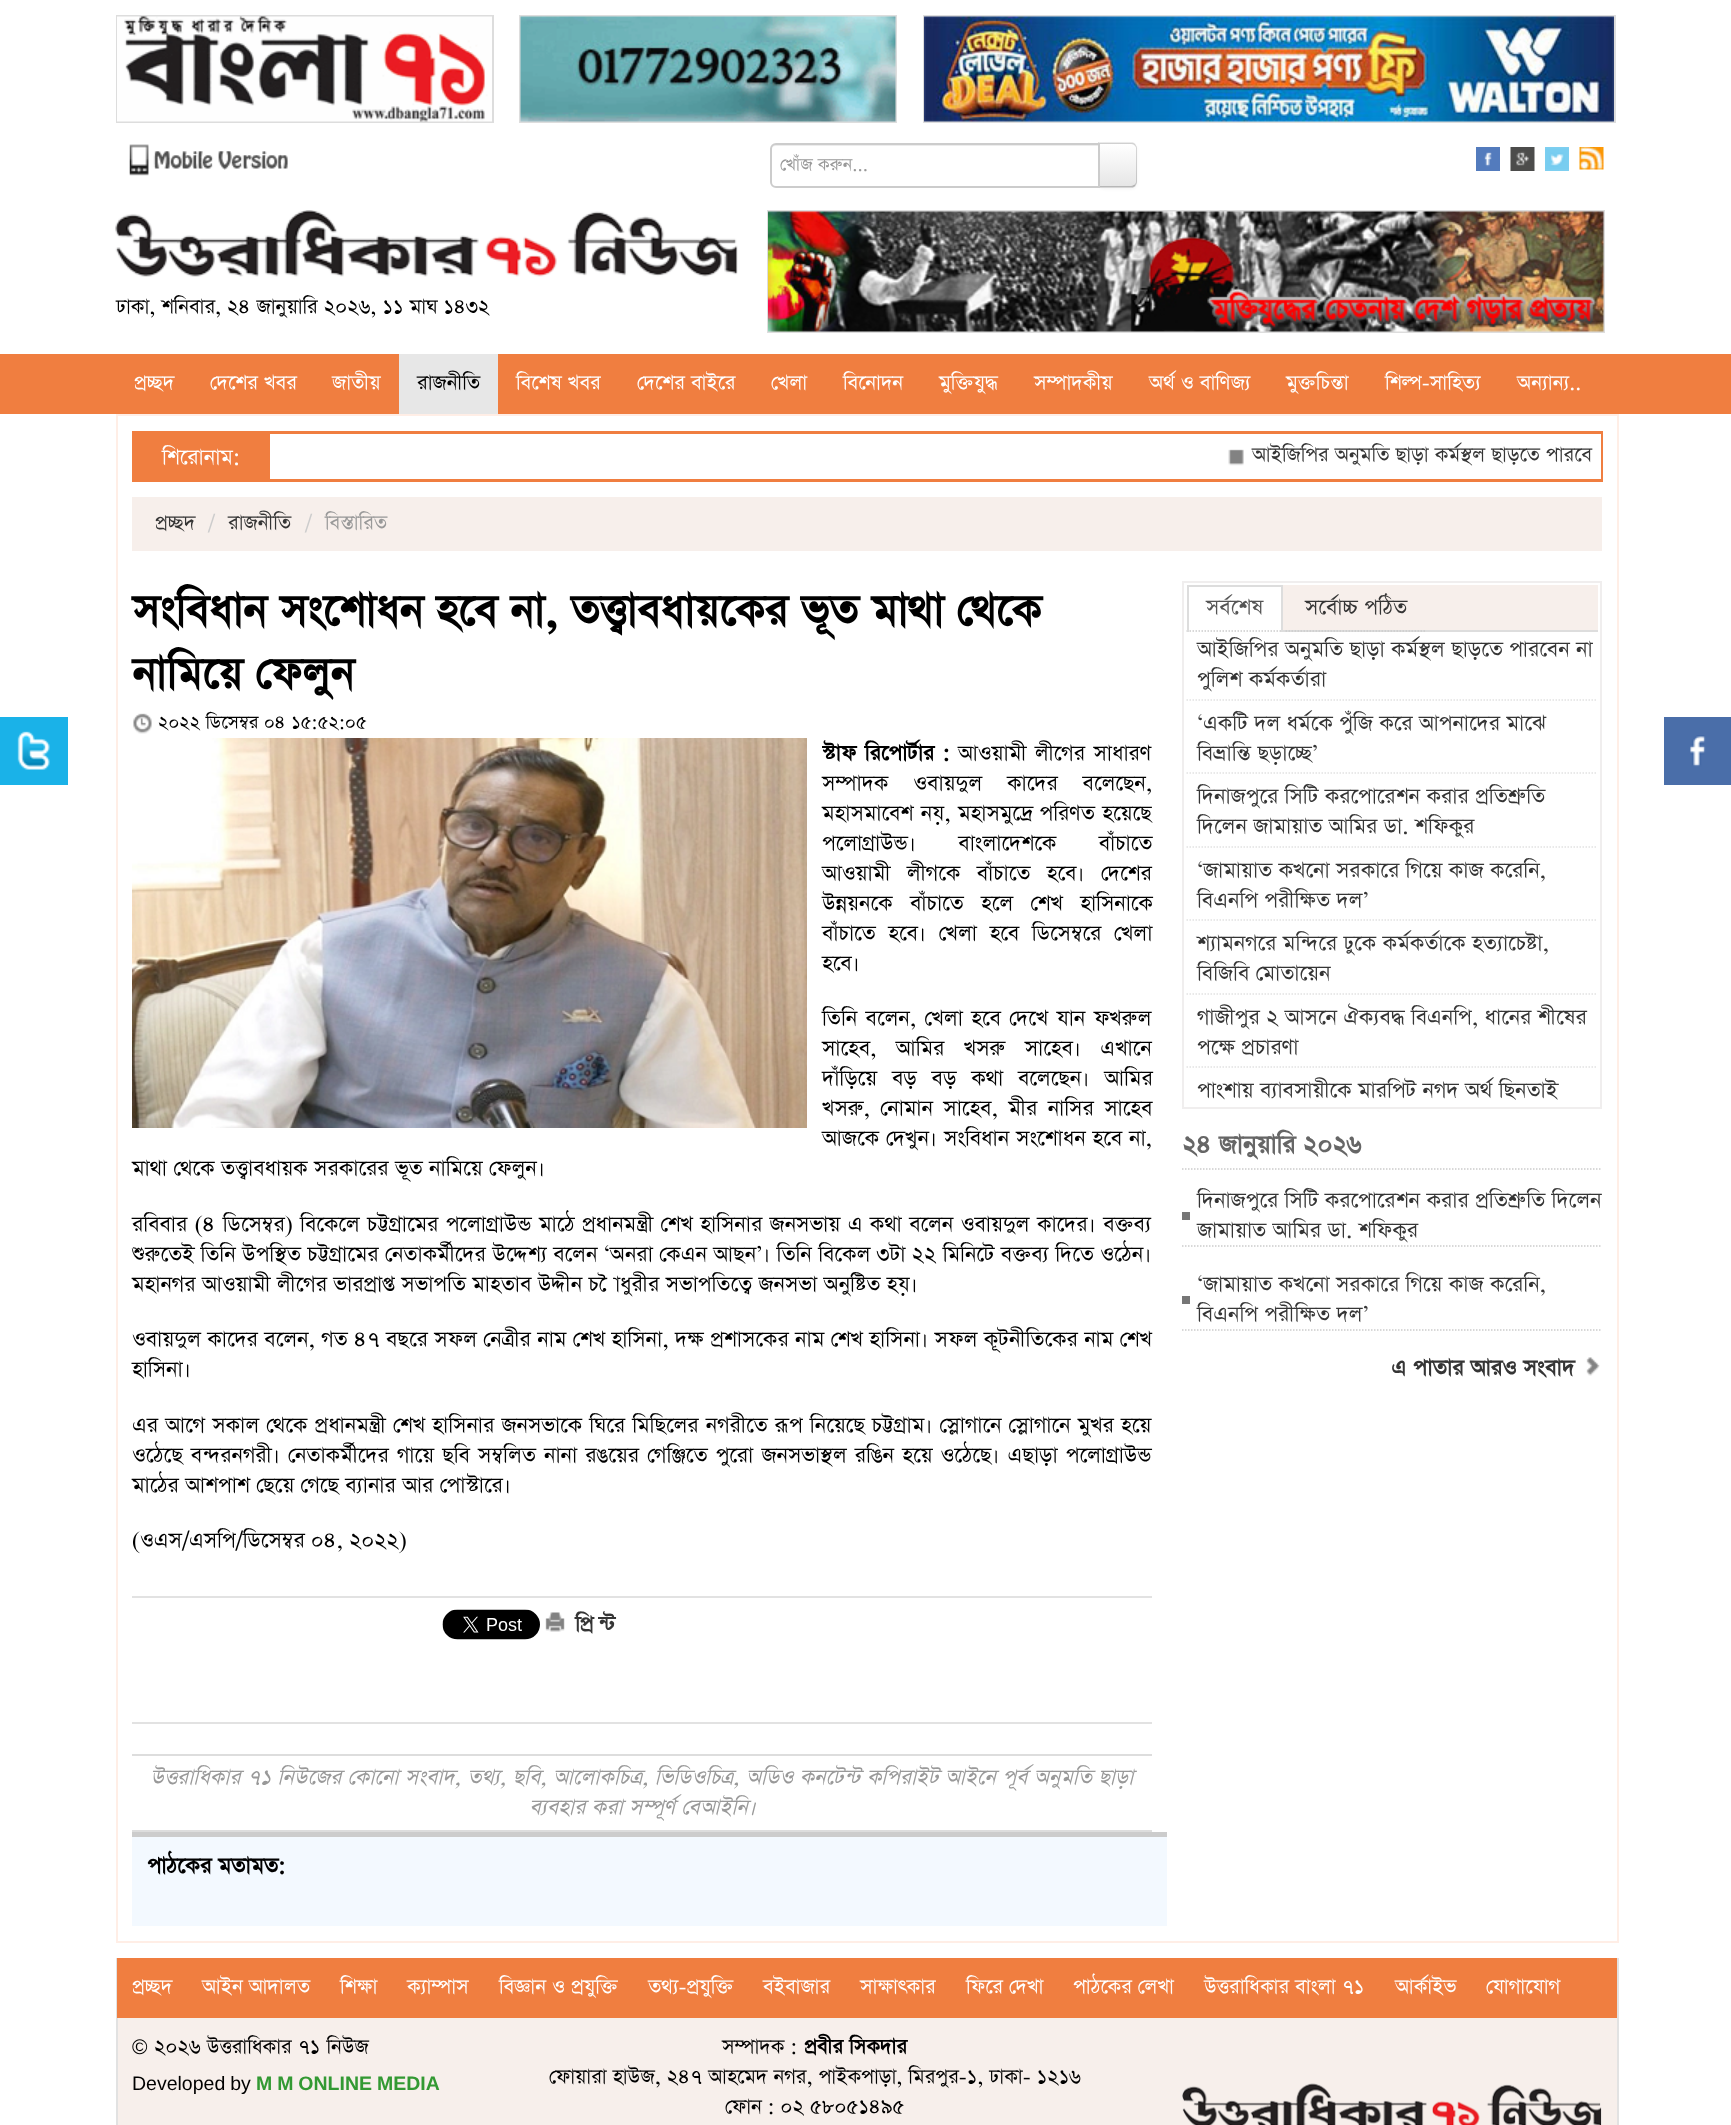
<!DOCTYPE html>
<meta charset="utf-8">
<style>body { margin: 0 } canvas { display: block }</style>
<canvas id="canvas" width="1731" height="2125"></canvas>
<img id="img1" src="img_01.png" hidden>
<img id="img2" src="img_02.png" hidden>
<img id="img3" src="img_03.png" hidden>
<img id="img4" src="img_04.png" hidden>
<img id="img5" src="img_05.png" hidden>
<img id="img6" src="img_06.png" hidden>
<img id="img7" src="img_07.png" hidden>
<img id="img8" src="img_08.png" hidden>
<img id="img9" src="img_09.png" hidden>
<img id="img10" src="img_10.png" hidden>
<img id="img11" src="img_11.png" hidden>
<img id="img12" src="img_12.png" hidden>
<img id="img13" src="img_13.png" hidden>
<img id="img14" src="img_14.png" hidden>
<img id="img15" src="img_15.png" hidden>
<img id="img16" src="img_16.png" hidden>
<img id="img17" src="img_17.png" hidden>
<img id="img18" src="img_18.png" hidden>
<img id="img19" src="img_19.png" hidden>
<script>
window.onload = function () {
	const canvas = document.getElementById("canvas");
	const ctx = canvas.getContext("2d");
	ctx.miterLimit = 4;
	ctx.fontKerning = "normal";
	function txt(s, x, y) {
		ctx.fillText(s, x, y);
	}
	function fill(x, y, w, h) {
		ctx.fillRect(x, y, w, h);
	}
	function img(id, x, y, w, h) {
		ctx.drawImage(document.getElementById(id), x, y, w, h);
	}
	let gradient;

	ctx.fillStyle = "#FFFFFF";
	fill(0, 0, 1731, 2125);
	ctx.strokeStyle = "#DDDDDD";
	ctx.lineWidth = 2;
	ctx.strokeRect(117, 16, 376, 106);
	img("img1", 117, 16, 375, 106);
	ctx.strokeRect(520, 16, 376, 106);
	img("img2", 520, 16, 376, 106);
	ctx.strokeRect(924, 16, 691, 106);
	img("img3", 924, 16, 690, 106);
	img("img4", 129, 144, 159, 32);
	ctx.fillStyle = "rgba(0, 0, 0, 0.05)";
	ctx.filter = "blur(1.5px)";
	ctx.beginPath();
	ctx.roundRect(1098, 144, 39, 45, 6);
	ctx.fill();
	ctx.filter = "none";
	ctx.fillStyle = "#F5F5F5";
	ctx.beginPath();
	ctx.roundRect(1098, 143, 39, 45, [0, 6, 6, 0]);
	ctx.fill();
	ctx.save();
	ctx.beginPath();
	ctx.roundRect(1098, 143, 39, 45, [0, 6, 6, 0]);
	ctx.clip();
	gradient = ctx.createLinearGradient(1121, 144, 1121, 186);
	gradient.addColorStop(0, "#FFFFFF");
	gradient.addColorStop(1, "#E6E6E6");
	ctx.fillStyle = gradient;
	fill(1100, 144, 37, 42);
	ctx.restore();
	ctx.fillStyle = "rgba(0, 0, 0, 0.15)";
	ctx.beginPath();
	ctx.moveTo(1100, 144);
	ctx.lineTo(1100, 144.5);
	ctx.lineTo(1098, 142.5);
	ctx.lineTo(1133, 142.5);
	ctx.lineTo(1135.5, 144);
	ctx.lineTo(1134, 145);
	ctx.bezierCurveTo(1133, 144.5, 1132, 144, 1131, 144);
	ctx.closePath();
	ctx.fill();
	ctx.beginPath();
	ctx.moveTo(1137, 182);
	ctx.lineTo(1137, 148);
	ctx.bezierCurveTo(1137, 147, 1136, 145, 1135, 144);
	ctx.lineTo(1134, 145);
	ctx.bezierCurveTo(1135, 146, 1136, 147, 1136, 148);
	ctx.lineTo(1136, 182);
	ctx.bezierCurveTo(1136, 183, 1135, 184, 1134, 185);
	ctx.lineTo(1135, 186);
	ctx.bezierCurveTo(1136, 185, 1137, 183, 1137, 182);
	ctx.closePath();
	ctx.fill();
	ctx.fillStyle = "rgba(0, 0, 0, 0.25)";
	ctx.beginPath();
	ctx.moveTo(1133, 187.5);
	ctx.lineTo(1098, 187.5);
	ctx.lineTo(1100, 185.5);
	ctx.lineTo(1100, 186);
	ctx.lineTo(1131, 186);
	ctx.bezierCurveTo(1132, 186, 1133, 185.5, 1134, 185);
	ctx.lineTo(1135.5, 186);
	ctx.closePath();
	ctx.fill();
	ctx.fillStyle = "rgba(0, 0, 0, 0.15)";
	ctx.beginPath();
	ctx.moveTo(1098, 188);
	ctx.lineTo(1100, 186);
	ctx.lineTo(1100, 144);
	ctx.lineTo(1098, 142);
	ctx.closePath();
	ctx.fill();
	ctx.fillStyle = "#FFFFFF";
	ctx.beginPath();
	ctx.roundRect(770, 143, 330, 45, [6, 0, 0, 6]);
	ctx.fill();
	ctx.fillStyle = "#ECECEC";
	ctx.beginPath();
	ctx.moveTo(776, 146);
	ctx.lineTo(1098, 146);
	ctx.lineTo(1098, 144);
	ctx.lineTo(776, 144);
	ctx.bezierCurveTo(773, 144, 771, 147, 771, 150);
	ctx.bezierCurveTo(771, 148, 773, 146, 776, 146);
	ctx.closePath();
	ctx.fill();
	ctx.beginPath();
	ctx.roundRect(771, 144, 328, 43, [5, 0, 0, 5]);
	ctx.strokeStyle = "#CCCCCC";
	ctx.stroke();
	img("img5", 1476, 147, 24, 24);
	img("img6", 1510, 147, 25, 24);
	img("img7", 1545, 147, 24, 24);
	img("img8", 1579, 147, 25, 23);
	img("img9", 115, 210, 623, 67);
	ctx.strokeStyle = "#DDDDDD";
	ctx.strokeRect(768, 211, 836, 121);
	img("img10", 768, 211, 836, 121);
	ctx.fillStyle = "#F07E40";
	fill(0, 354, 1731, 60);
	ctx.fillStyle = "#E7E7E7";
	fill(399, 354, 99, 60);
	ctx.fillStyle = "#1AB2E8";
	fill(0, 717, 68, 68);
	img("img11", 17, 731, 33, 39);
	ctx.strokeStyle = "#FFEEE6";
	ctx.strokeRect(117, 415, 1501, 1527);
	ctx.fillStyle = "#F07E40";
	fill(132, 431, 1470, 3);
	fill(1601, 431, 2, 51);
	fill(132, 479, 1470, 3);
	fill(132, 434, 138, 45);
	img("img12", 1228, 449, 16, 17);
	ctx.fillStyle = "#F7EFEB";
	fill(132, 497, 1470, 54);
	img("img13", 133, 713, 19, 21);
	img("img14", 132, 738, 675, 390);
	ctx.fillStyle = "#E2E2E2";
	fill(132, 1596, 1020, 2);
	fill(132, 1722, 1020, 2);
	img("img15", 442, 1609, 98, 31);
	img("img16", 545, 1612, 20, 20);
	ctx.fillStyle = "#DDDDDD";
	fill(132, 1754, 1020, 2);
	fill(132, 1830, 1020, 2);
	ctx.fillStyle = "#F3F9FF";
	fill(132, 1837, 1035, 89);
	ctx.fillStyle = "#CCCCCC";
	fill(132, 1832, 1035, 5);
	ctx.strokeStyle = "#F0EEEE";
	ctx.strokeRect(1183, 582, 418, 526);
	ctx.fillStyle = "#F7EFEB";
	fill(1283, 585, 315, 45);
	ctx.fillStyle = "#DDDDDD";
	fill(1283, 630, 315, 2);
	fill(1187, 585, 96, 2);
	fill(1281, 585, 2, 47);
	ctx.beginPath();
	ctx.moveTo(1186.5, 631);
	ctx.lineTo(1282.5, 631);
	ctx.strokeStyle = "#CCCCCC";
	ctx.lineWidth = 1.5;
	ctx.setLineDash([1.5, 1.5]);
	ctx.stroke();
	fill(1187, 585, 2, 47);
	ctx.beginPath();
	ctx.moveTo(1285.5, 631);
	ctx.lineTo(1426.5, 631);
	ctx.stroke();
	ctx.beginPath();
	ctx.moveTo(1186.5, 700);
	ctx.lineTo(1597.5, 700);
	ctx.strokeStyle = "#E2E2E2";
	ctx.stroke();
	ctx.beginPath();
	ctx.moveTo(1186.5, 773);
	ctx.lineTo(1597.5, 773);
	ctx.stroke();
	ctx.beginPath();
	ctx.moveTo(1186.5, 847);
	ctx.lineTo(1597.5, 847);
	ctx.stroke();
	ctx.beginPath();
	ctx.moveTo(1186.5, 920);
	ctx.lineTo(1597.5, 920);
	ctx.stroke();
	ctx.beginPath();
	ctx.moveTo(1186.5, 994);
	ctx.lineTo(1597.5, 994);
	ctx.stroke();
	ctx.beginPath();
	ctx.moveTo(1186.5, 1067);
	ctx.lineTo(1597.5, 1067);
	ctx.stroke();
	ctx.beginPath();
	ctx.moveTo(1182, 1169);
	ctx.lineTo(1602, 1169);
	ctx.strokeStyle = "#CCCCCC";
	ctx.stroke();
	ctx.fillStyle = "#767676";
	fill(1182, 1212, 8, 8);
	ctx.beginPath();
	ctx.moveTo(1182, 1246);
	ctx.lineTo(1602, 1246);
	ctx.stroke();
	fill(1182, 1296, 8, 8);
	ctx.beginPath();
	ctx.moveTo(1182, 1330);
	ctx.lineTo(1602, 1330);
	ctx.stroke();
	img("img17", 1586, 1357, 14, 19);
	ctx.fillStyle = "#F7EFEB";
	fill(118, 2018, 1499, 107);
	ctx.fillStyle = "#E2E2E2";
	fill(1617, 1958, 2, 167);
	fill(116, 1958, 2, 167);
	ctx.fillStyle = "#F07E40";
	fill(117, 1958, 1500, 60);
	img("img18", 1182, 2083, 420, 42);
	ctx.fillStyle = "#4A6EA9";
	fill(1664, 717, 67, 68);
	img("img19", 1690, 735, 16, 32);
	ctx.save();
	ctx.beginPath();
	ctx.rect(780, 153, 309, 24);
	ctx.clip();
	ctx.font = "21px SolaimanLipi";
	ctx.fillStyle = "#999999";
	txt("খোঁজ করুন...", 780, 171);
	ctx.restore();
	ctx.font = "24px SolaimanLipi";
	ctx.fillStyle = "#000000";
	txt("ঢাকা, শনিবার, ২৪ জানুয়ারি ২০২৬, ১১ মাঘ ১৪৩২", 116, 314);
	ctx.fillStyle = "#FFFFFF";
	txt("প্রচ্ছদ", 134, 390);
	txt("দেশের খবর", 210, 390);
	txt("জাতীয়", 332, 390);
	ctx.fillStyle = "#000000";
	txt("রাজনীতি", 417, 390);
	ctx.fillStyle = "#FFFFFF";
	txt("বিশেষ খবর", 516, 390);
	txt("দেশের বাইরে", 637, 390);
	txt("খেলা", 771, 390);
	txt("বিনোদন", 843, 390);
	txt("মুক্তিযুদ্ধ", 939, 390);
	txt("সম্পাদকীয়", 1034, 390);
	txt("অর্থ ও বাণিজ্য", 1149, 390);
	txt("মুক্তচিন্তা", 1286, 390);
	txt("শিল্প-সাহিত্য", 1385, 390);
	txt("অন্যান্য..", 1517, 390);
	ctx.font = "25.5px SolaimanLipi";
	txt("শিরোনাম:", 162, 465);
	ctx.font = "24px SolaimanLipi";
	ctx.fillStyle = "#353535";
	txt("আইজিপির অনুমতি ছাড়া কর্মস্থল ছাড়তে পারবে", 1252, 462);
	txt("প্রচ্ছদ", 155, 530);
	ctx.fillStyle = "#CCCCCC";
	txt("/", 208, 530);
	ctx.fillStyle = "#353535";
	txt("রাজনীতি", 228, 530);
	ctx.fillStyle = "#CCCCCC";
	txt("/", 305, 530);
	ctx.fillStyle = "#999999";
	txt("বিস্তারিত", 325, 530);
	ctx.font = "bold 52.5px SolaimanLipi";
	ctx.fillStyle = "#000000";
	txt("সংবিধান সংশোধন হবে না, তত্ত্বাবধায়কের ভূত মাথা থেকে", 132, 627);
	txt("নামিয়ে ফেলুন", 132, 690);
	ctx.font = "21.75px SolaimanLipi";
	txt("২০২২ ডিসেম্বর ০৪ ১৫:৫২:০৫", 158, 729);
	ctx.wordSpacing = "2px";
	ctx.font = "bold 25.5px SolaimanLipi";
	txt("স্টাফ রিপোর্টার :", 822, 761);
	ctx.font = "25.5px SolaimanLipi";
	txt("আওয়ামী লীগের সাধারণ", 958, 761);
	ctx.wordSpacing = "18.5px";
	txt("সম্পাদক ওবায়দুল কাদের বলেছেন,", 822, 791);
	ctx.wordSpacing = "1px";
	txt("মহাসমাবেশ নয়, মহাসমুদ্রে পরিণত হয়েছে", 822, 821);
	ctx.wordSpacing = "36px";
	txt("পলোগ্রাউন্ড। বাংলাদেশকে বাঁচাতে", 822, 851);
	ctx.wordSpacing = "10px";
	txt("আওয়ামী লীগকে বাঁচাতে হবে। দেশের", 822, 881);
	ctx.wordSpacing = "11px";
	txt("উন্নয়নকে বাঁচাতে হলে শেখ হাসিনাকে", 822, 911);
	ctx.wordSpacing = "6.25px";
	txt("বাঁচাতে হবে। খেলা হবে ডিসেম্বরে খেলা", 822, 941);
	ctx.wordSpacing = "0px";
	txt("হবে।", 822, 971);
	ctx.wordSpacing = "2px";
	txt("তিনি বলেন, খেলা হবে দেখে যান ফখরুল", 822, 1026);
	ctx.wordSpacing = "13px";
	txt("সাহেব, আমির খসরু সাহেব। এখানে", 822, 1056);
	ctx.wordSpacing = "8.5px";
	txt("দাঁড়িয়ে বড় বড় কথা বলেছেন। আমির", 822, 1086);
	ctx.wordSpacing = "4px";
	txt("খসরু, নোমান সাহেব, মীর নাসির সাহেব", 822, 1116);
	ctx.wordSpacing = "0.5px";
	txt("আজকে দেখুন। সংবিধান সংশোধন হবে না,", 822, 1146);
	ctx.wordSpacing = "0px";
	txt("মাথা থেকে তত্ত্বাবধায়ক সরকারের ভূত নামিয়ে ফেলুন।", 132, 1176);
	ctx.wordSpacing = "1px";
	txt("রবিবার (৪ ডিসেম্বর) বিকেলে চট্টগ্রামের পলোগ্রাউন্ড মাঠে প্রধানমন্ত্রী শেখ হাসিনার জনসভায় এ কথা বলেন ওবায়দুল কাদের। বক্তব্য", 132, 1232);
	ctx.wordSpacing = "0px";
	txt("শুরুতেই তিনি উপস্থিত চট্টগ্রামের নেতাকর্মীদের উদ্দেশ্য বলেন ‘অনরা কেএন আছন’। তিনি বিকেল ৩টা ২২ মিনিটে বক্তব্য দিতে ওঠেন।", 132, 1262);
	txt("মহানগর আওয়ামী লীগের ভারপ্রাপ্ত সভাপতি মাহতাব উদ্দীন চৌধুরীর সভাপতিত্বে জনসভা অনুষ্টিত হয়।", 132, 1292);
	txt("ওবায়দুল কাদের বলেন, গত ৪৭ বছরে সফল নেত্রীর নাম শেখ হাসিনা, দক্ষ প্রশাসকের নাম শেখ হাসিনা। সফল কূটনীতিকের নাম শেখ", 132, 1347);
	txt("হাসিনা।", 132, 1377);
	ctx.wordSpacing = "0.75px";
	txt("এর আগে সকাল থেকে প্রধানমন্ত্রী শেখ হাসিনার জনসভাকে ঘিরে মিছিলের নগরীতে রূপ নিয়েছে চট্টগ্রাম। স্লোগানে স্লোগানে মুখর হয়ে", 132, 1433);
	ctx.wordSpacing = "1.75px";
	txt("ওঠেছে বন্দরনগরী। নেতাকর্মীদের গায়ে ছবি সম্বলিত নানা রঙয়ের গেঞ্জিতে পুরো জনসভাস্থল রঙিন হয়ে ওঠেছে। এছাড়া পলোগ্রাউন্ড", 132, 1463);
	ctx.wordSpacing = "0px";
	txt("মাঠের আশপাশ ছেয়ে গেছে ব্যানার আর পোস্টারে।", 132, 1493);
	txt("(ওএস/এসপি/ডিসেম্বর ০৪, ২০২২)", 132, 1548);
	ctx.letterSpacing = "4.5px";
	ctx.font = "bold 25.5px SolaimanLipi";
	ctx.fillStyle = "#353535";
	txt("প্রিন্ট", 575, 1632);
	ctx.letterSpacing = "0px";
	ctx.font = "italic 25.5px SolaimanLipi";
	ctx.fillStyle = "#999999";
	txt("উত্তরাধিকার ৭১ নিউজের কোনো সংবাদ, তথ্য, ছবি, আলোকচিত্র, ভিডিওচিত্র, অডিও কনটেন্ট কপিরাইট আইনে পূর্ব অনুমতি ছাড়া", 150, 1785);
	txt("ব্যবহার করা সম্পূর্ণ বেআইনি।", 529, 1815);
	ctx.font = "bold 26.25px SolaimanLipi";
	ctx.fillStyle = "#000000";
	txt("পাঠকের মতামত:", 147, 1874);
	ctx.font = "25.5px SolaimanLipi";
	ctx.fillStyle = "#555555";
	txt("সর্বশেষ", 1206, 615);
	ctx.fillStyle = "#353535";
	txt("সর্বোচ্চ পঠিত", 1305, 615);
	txt("আইজিপির অনুমতি ছাড়া কর্মস্থল ছাড়তে পারবেন না", 1197, 657);
	txt("পুলিশ কর্মকর্তারা", 1197, 687);
	txt("‘একটি দল ধর্মকে পুঁজি করে আপনাদের মাঝে", 1197, 731);
	txt("বিভ্রান্তি ছড়াচ্ছে’", 1197, 761);
	txt("দিনাজপুরে সিটি করপোরেশন করার প্রতিশ্রুতি", 1197, 804);
	txt("দিলেন জামায়াত আমির ডা. শফিকুর", 1197, 834);
	txt("‘জামায়াত কখনো সরকারে গিয়ে কাজ করেনি,", 1197, 878);
	txt("বিএনপি পরীক্ষিত দল’", 1197, 908);
	txt("শ্যামনগরে মন্দিরে ঢুকে কর্মকর্তাকে হত্যাচেষ্টা,", 1197, 951);
	txt("বিজিবি মোতায়েন", 1197, 981);
	txt("গাজীপুর ২ আসনে ঐক্যবদ্ধ বিএনপি, ধানের শীষের", 1197, 1025);
	txt("পক্ষে প্রচারণা", 1197, 1055);
	txt("পাংশায় ব্যাবসায়ীকে মারপিট নগদ অর্থ ছিনতাই", 1197, 1098);
	ctx.font = "bold 30px SolaimanLipi";
	ctx.fillStyle = "#666666";
	txt("২৪ জানুয়ারি ২০২৬", 1182, 1154);
	ctx.font = "25.5px SolaimanLipi";
	ctx.fillStyle = "#353535";
	txt("দিনাজপুরে সিটি করপোরেশন করার প্রতিশ্রুতি দিলেন", 1197, 1208);
	txt("জামায়াত আমির ডা. শফিকুর", 1197, 1238);
	txt("‘জামায়াত কখনো সরকারে গিয়ে কাজ করেনি,", 1197, 1292);
	txt("বিএনপি পরীক্ষিত দল’", 1197, 1322);
	ctx.font = "bold 26.25px SolaimanLipi";
	txt("এ পাতার আরও সংবাদ", 1391, 1376);
	ctx.font = "24px SolaimanLipi";
	ctx.fillStyle = "#FFFFFF";
	txt("প্রচ্ছদ", 132, 1994);
	txt("আইন আদালত", 202, 1994);
	txt("শিক্ষা", 340, 1994);
	txt("ক্যাম্পাস", 407, 1994);
	txt("বিজ্ঞান ও প্রযুক্তি", 499, 1994);
	txt("তথ্য-প্রযুক্তি", 648, 1994);
	txt("বইবাজার", 763, 1994);
	txt("সাক্ষাৎকার", 860, 1994);
	txt("ফিরে দেখা", 966, 1994);
	txt("পাঠকের লেখা", 1073, 1994);
	txt("উত্তরাধিকার বাংলা ৭১", 1204, 1994);
	txt("আর্কাইভ", 1395, 1994);
	txt("যোগাযোগ", 1486, 1994);
	ctx.font = "21px Liberation Sans";
	ctx.fillStyle = "#000000";
	txt("©", 132, 2054);
	ctx.font = "24px SolaimanLipi";
	txt("২০২৬ উত্তরাধিকার ৭১ নিউজ", 154, 2054);
	ctx.wordSpacing = "-0.5px";
	ctx.font = "19.5px Liberation Sans";
	txt("Developed by", 132, 2090);
	ctx.font = "bold 19.5px Liberation Sans";
	ctx.fillStyle = "#339933";
	txt("M M ONLINE MEDIA", 256, 2090);
	ctx.wordSpacing = "0px";
	ctx.font = "24px SolaimanLipi";
	ctx.fillStyle = "#000000";
	txt("সম্পাদক :", 722, 2054);
	ctx.font = "bold 24px SolaimanLipi";
	txt("প্রবীর সিকদার", 804, 2054);
	ctx.font = "24px SolaimanLipi";
	txt("ফোয়ারা হাউজ, ২৪৭ আহমেদ নগর, পাইকপাড়া, মিরপুর-১, ঢাকা- ১২১৬", 549, 2084);
	txt("ফোন : ০২ ৫৮০৫১৪৯৫", 725, 2114);
};
</script>
